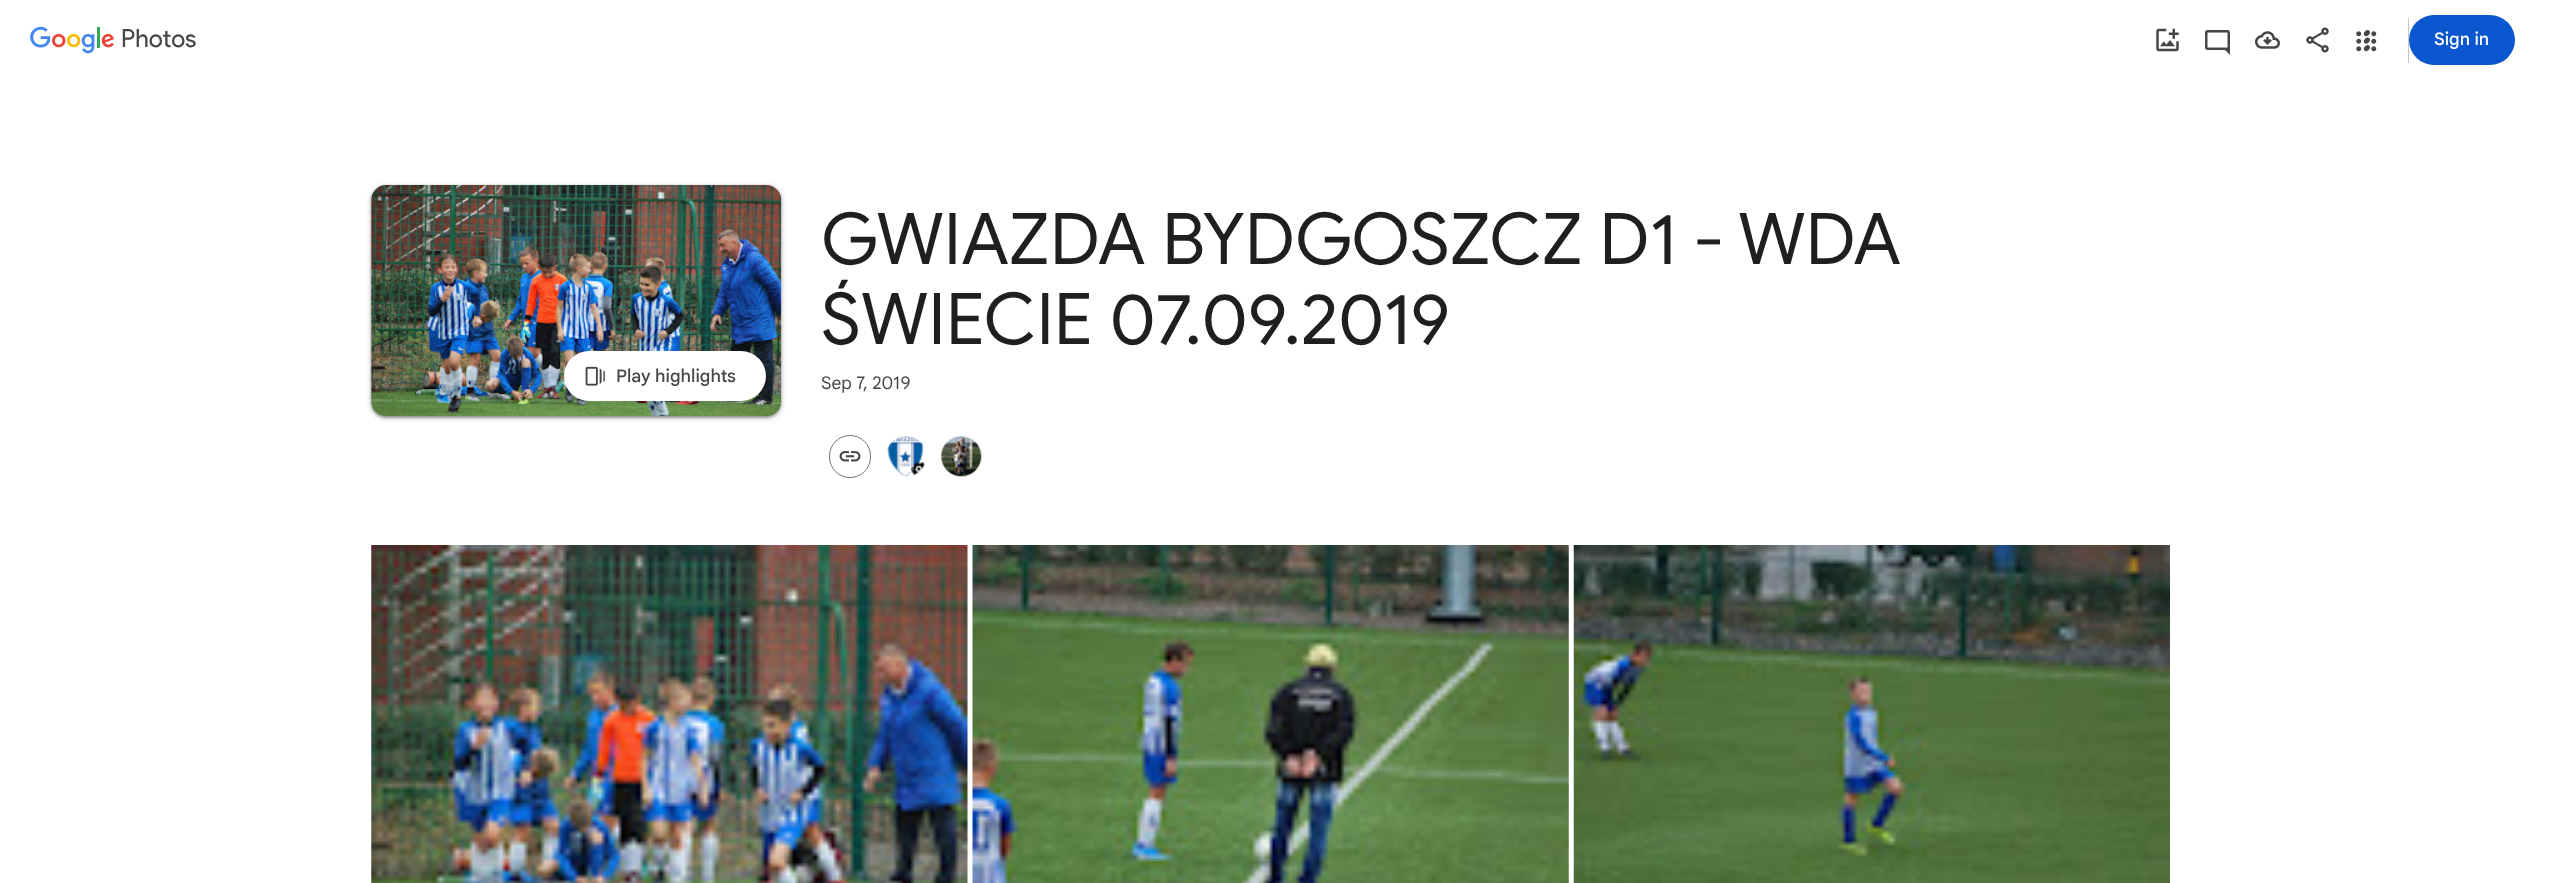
<!DOCTYPE html>
<meta charset="utf-8">
<style>body { margin: 0 } canvas { display: block }</style>
<canvas id="canvas" width="2560" height="883"></canvas>
<img id="img1" src="img_01.png" hidden>
<img id="img2" src="img_02.png" hidden>
<img id="img3" src="img_03.png" hidden>
<img id="img4" src="img_04.png" hidden>
<img id="img5" src="img_05.png" hidden>
<img id="img6" src="img_06.png" hidden>
<img id="img7" src="img_07.png" hidden>
<img id="img8" src="img_08.png" hidden>
<img id="img9" src="img_09.png" hidden>
<img id="img10" src="img_10.png" hidden>
<img id="img11" src="img_11.png" hidden>
<img id="img12" src="img_12.png" hidden>
<img id="img13" src="img_13.png" hidden>
<img id="img14" src="img_14.png" hidden>
<img id="img15" src="img_15.png" hidden>
<script>
window.onload = function () {
	const canvas = document.getElementById("canvas");
	const ctx = canvas.getContext("2d");
	ctx.miterLimit = 4;
	ctx.fontKerning = "normal";
	function txt(s, x, y) {
		ctx.fillText(s, x, y);
	}
	function fill(x, y, w, h) {
		ctx.fillRect(x, y, w, h);
	}
	function round(x, y, w, h, r) {
		ctx.beginPath();
		ctx.roundRect(x, y, w, h, r);
		ctx.fill();
	}
	function img(id, x, y, w, h) {
		ctx.drawImage(document.getElementById(id), x, y, w, h);
	}

	ctx.fillStyle = "#FFFFFF";
	fill(0, 0, 2560, 883);
	img("img1", 30, 26, 84, 28);
	img("img2", 2156, 28, 23, 24);
	img("img3", 2205, 30, 25, 25);
	img("img4", 2255, 31, 25, 18);
	img("img5", 2306, 27, 23, 26);
	img("img6", 2365, 30, 5, 20);
	ctx.fillStyle = "#C4C7C5";
	fill(2408, 18, 1, 45);
	ctx.fillStyle = "#F8FAFD";
	round(371, 185, 410, 231, 15);
	ctx.fillStyle = "rgba(0, 0, 0, 0.15)";
	ctx.filter = "blur(2px)";
	ctx.beginPath();
	ctx.roundRect(370, 185, 413, 234, 16);
	ctx.fill();
	ctx.filter = "none";
	ctx.fillStyle = "rgba(0, 0, 0, 0.3)";
	ctx.filter = "blur(1px)";
	ctx.beginPath();
	ctx.roundRect(371, 186, 410, 232, 15);
	ctx.fill();
	ctx.filter = "none";
	img("img7", 371, 185, 411, 232);
	ctx.fillStyle = "#FFFFFF";
	round(564, 351, 202, 50, 25);
	img("img8", 585, 366, 20, 20);
	ctx.beginPath();
	ctx.roundRect(829.5, 435.5, 41, 42, 20.5);
	ctx.strokeStyle = "#747775";
	ctx.stroke();
	img("img9", 839, 451, 22, 11);
	img("img10", 887, 436, 38, 41);
	img("img11", 941, 436, 41, 41);
	img("img12", 371, 545, 597, 338);
	img("img13", 972, 545, 597, 338);
	img("img14", 1573, 545, 597, 338);
	img("img15", 2356, 31, 21, 21);
	ctx.fillStyle = "#0B57D0";
	round(2409, 15, 106, 50, 25);
	ctx.font = "25px Product Sans";
	ctx.fillStyle = "#444746";
	txt("Photos", 121, 47);
	ctx.font = "500 17.5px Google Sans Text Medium";
	txt("Play highlights", 616, 382);
	ctx.font = "71.25px Google Sans";
	ctx.fillStyle = "#1F1F1F";
	txt("GWIAZDA BYDGOSZCZ D1 - WDA", 821, 264);
	txt("ŚWIECIE 07.09.2019", 821, 344);
	ctx.font = "17.5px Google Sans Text";
	ctx.fillStyle = "#444746";
	txt("Sep 7, 2019", 821, 389);
	ctx.font = "500 17.5px Google Sans Text Medium";
	ctx.fillStyle = "#FFFFFF";
	txt("Sign in", 2434, 45);
};
</script>
